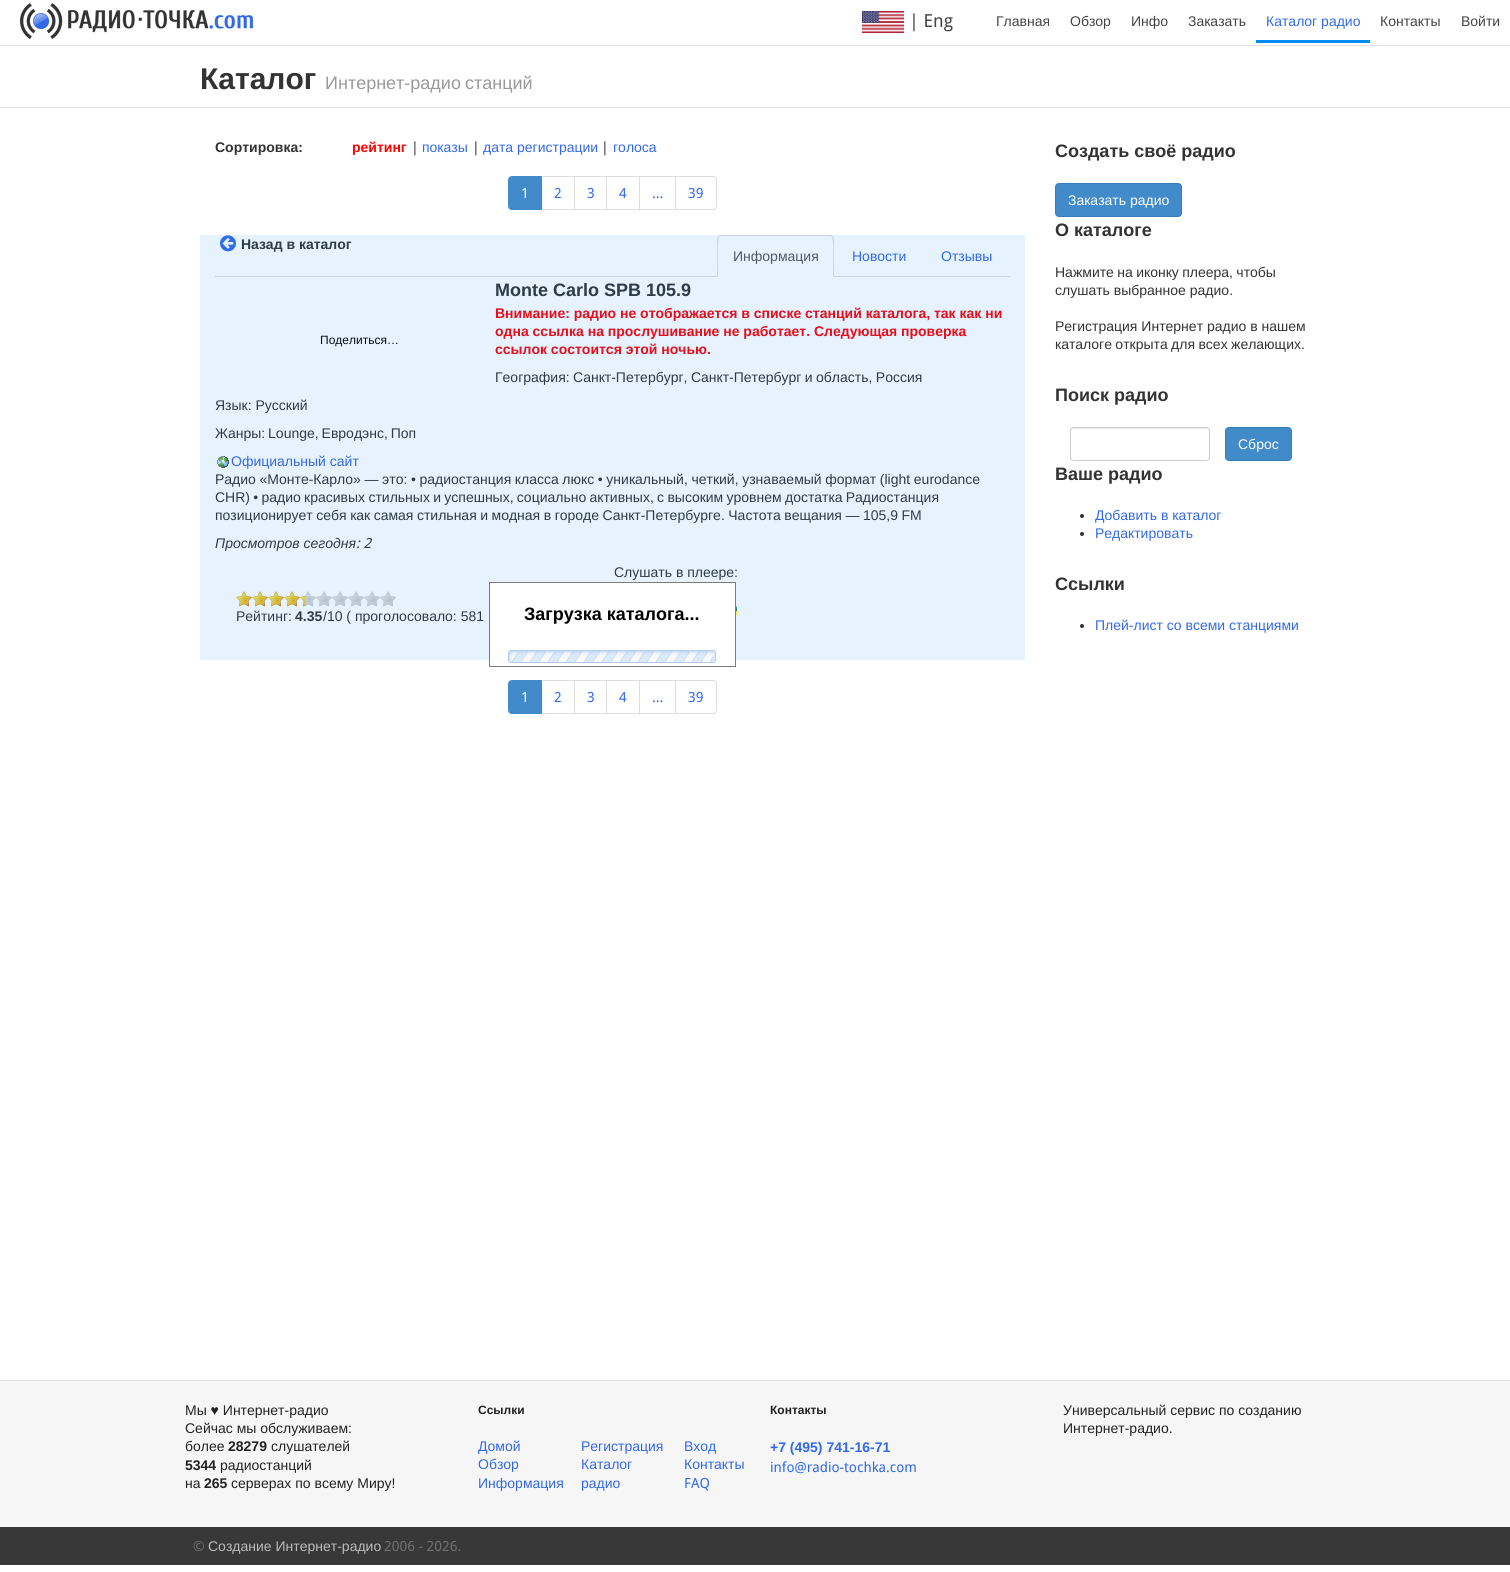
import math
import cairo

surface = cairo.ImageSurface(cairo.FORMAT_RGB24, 1510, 1572)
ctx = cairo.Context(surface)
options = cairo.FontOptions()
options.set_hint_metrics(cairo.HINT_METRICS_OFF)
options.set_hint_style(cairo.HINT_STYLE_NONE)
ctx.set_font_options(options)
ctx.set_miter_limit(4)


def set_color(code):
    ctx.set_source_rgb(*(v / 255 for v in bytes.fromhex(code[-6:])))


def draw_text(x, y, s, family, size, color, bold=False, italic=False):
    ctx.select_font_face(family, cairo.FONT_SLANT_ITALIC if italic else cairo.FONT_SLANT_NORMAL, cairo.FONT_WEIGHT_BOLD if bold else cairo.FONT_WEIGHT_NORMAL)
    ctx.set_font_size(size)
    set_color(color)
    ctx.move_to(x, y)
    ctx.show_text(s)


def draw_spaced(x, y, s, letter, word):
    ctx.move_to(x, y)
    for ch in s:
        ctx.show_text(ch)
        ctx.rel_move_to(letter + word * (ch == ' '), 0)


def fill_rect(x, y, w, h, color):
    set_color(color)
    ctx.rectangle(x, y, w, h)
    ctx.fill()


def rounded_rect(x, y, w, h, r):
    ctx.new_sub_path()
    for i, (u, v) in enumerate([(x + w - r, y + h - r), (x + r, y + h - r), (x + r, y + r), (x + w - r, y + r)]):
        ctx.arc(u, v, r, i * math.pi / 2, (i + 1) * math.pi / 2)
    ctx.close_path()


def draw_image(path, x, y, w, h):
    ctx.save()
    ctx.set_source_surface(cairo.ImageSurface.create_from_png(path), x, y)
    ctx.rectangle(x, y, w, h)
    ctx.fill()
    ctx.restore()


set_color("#ffffff")
ctx.paint()
fill_rect(200, 235, 825, 425, "#e6f3ff")
draw_image("assets/img1.png", 20, 3, 233, 36)
draw_image("assets/img2.png", 862, 11, 42, 22)
draw_text(909, 27, "| Eng", "Droid Sans", 18, "#444444")
draw_text(996, 26, "Главная", "Liberation Sans", 14, "#444444")
draw_text(1070, 26, "Обзор", "Liberation Sans", 14, "#444444")
draw_text(1131, 26, "Инфо", "Liberation Sans", 14, "#444444")
draw_text(1188, 26, "Заказать", "Liberation Sans", 14, "#444444")
fill_rect(1256, 40, 114, 3, "#008df8")
draw_text(1266, 26, "Каталог радио", "Liberation Sans", 14, "#3369e8")
draw_text(1380, 26, "Контакты", "Liberation Sans", 14, "#444444")
draw_text(1461, 26, "Войти", "Liberation Sans", 14, "#444444")
fill_rect(0, 45, 1510, 1, "#e0e0e0")
fill_rect(0, 107, 1510, 1, "#e0e0e0")
draw_text(200, 89, "Каталог", "Liberation Sans", 30, "#333333", bold=True)
ctx.select_font_face("Liberation Sans")
ctx.set_font_size(18)
set_color("#999999")
draw_spaced(325, 89, "Интернет-радио станций", 0, -1)
draw_text(215, 152, "Сортировка:", "Liberation Sans", 14, "#333333", bold=True)
draw_text(352, 152, "рейтинг", "Liberation Sans", 14, "#ff0000", bold=True)
draw_text(411, 152, "|", "Droid Sans", 14, "#333333")
draw_text(422, 152, "показы", "Liberation Sans", 14, "#3369e8")
draw_text(472, 152, "|", "Droid Sans", 14, "#333333")
draw_text(483, 152, "дата регистрации", "Liberation Sans", 14, "#3369e8")
draw_text(601, 152, "|", "Droid Sans", 14, "#333333")
draw_text(613, 152, "голоса", "Liberation Sans", 14, "#3369e8")
ctx.rectangle(541.5, 176.5, 33, 33)
set_color("#dddddd")
ctx.set_line_width(1)
ctx.stroke()
set_color("#428bca")
ctx.new_path()
ctx.move_to(512, 176.5)
ctx.line_to(541.5, 176.5)
ctx.line_to(541.5, 209.5)
ctx.line_to(512, 209.5)
ctx.curve_to(510, 209.5, 508.5, 208, 508.5, 206)
ctx.line_to(508.5, 180)
ctx.curve_to(508.5, 178, 510, 176.5, 512, 176.5)
ctx.close_path()
ctx.fill_preserve()
ctx.stroke()
draw_text(521, 198, "1", "Droid Sans", 14, "#ffffff")
draw_text(554, 198, "2", "Droid Sans", 14, "#3369e8")
ctx.rectangle(574.5, 176.5, 32, 33)
set_color("#dddddd")
ctx.stroke()
draw_text(587, 198, "3", "Droid Sans", 14, "#3369e8")
ctx.rectangle(606.5, 176.5, 33, 33)
set_color("#dddddd")
ctx.stroke()
draw_text(619, 198, "4", "Droid Sans", 14, "#3369e8")
ctx.rectangle(639.5, 176.5, 36, 33)
set_color("#dddddd")
ctx.stroke()
draw_text(652, 198, "...", "Droid Sans", 14, "#3369e8")
set_color("#ffffff")
ctx.new_path()
ctx.move_to(675.5, 176.5)
ctx.line_to(713, 176.5)
ctx.curve_to(715, 176.5, 716.5, 178, 716.5, 180)
ctx.line_to(716.5, 206)
ctx.curve_to(716.5, 208, 715, 209.5, 713, 209.5)
ctx.line_to(675.5, 209.5)
ctx.close_path()
ctx.fill_preserve()
set_color("#dddddd")
ctx.stroke()
draw_text(688, 198, "39", "Droid Sans", 14, "#3369e8")
fill_rect(215, 276, 795, 1, "#c7d5e0")
draw_image("assets/img3.png", 220, 235, 16, 17)
draw_text(241, 249, "Назад в каталог", "Liberation Sans", 14, "#2e3c47", bold=True)
set_color("#e6f3ff")
ctx.new_path()
ctx.move_to(721, 235)
ctx.line_to(830, 235)
ctx.curve_to(832, 235, 834, 237, 834, 239)
ctx.line_to(834, 277)
ctx.line_to(717, 277)
ctx.line_to(717, 239)
ctx.curve_to(717, 237, 719, 235, 721, 235)
ctx.close_path()
ctx.fill()
set_color("#c7d5e0")
ctx.new_path()
ctx.move_to(721, 235)
ctx.line_to(718, 236)
ctx.line_to(719, 237)
ctx.line_to(721, 236)
ctx.line_to(830, 236)
ctx.line_to(832, 237)
ctx.line_to(833, 236)
ctx.line_to(830, 235)
ctx.close_path()
ctx.fill()
ctx.new_path()
ctx.move_to(834, 277)
ctx.line_to(834, 239)
ctx.curve_to(834, 238, 834, 237, 833, 236)
ctx.line_to(832, 237)
ctx.curve_to(834, 239, 833, 271, 833, 276)
ctx.close_path()
ctx.fill()
ctx.new_path()
ctx.move_to(717, 277)
ctx.line_to(718, 276)
ctx.curve_to(718, 271, 717, 239, 719, 237)
ctx.line_to(718, 236)
ctx.line_to(717, 239)
ctx.close_path()
ctx.fill()
draw_text(733, 261, "Информация", "Liberation Sans", 14, "#4d5a66")
draw_text(852, 261, "Новости", "Liberation Sans", 14, "#3369e8")
draw_text(941, 261, "Отзывы", "Liberation Sans", 14, "#3369e8")
draw_text(495, 296, "Monte Carlo SPB 105.9", "Liberation Sans", 18, "#2e3c47", bold=True)
draw_text(320, 344, "Поделиться…", "Liberation Sans", 12, "#000e1a")
draw_text(495, 318, "Внимание: радио не отображается в списке станций каталога, так как ни", "Liberation Sans", 14, "#e60e1a", bold=True)
draw_text(495, 336, "одна ссылка на прослушивание не работает. Следующая проверка", "Liberation Sans", 14, "#e60e1a", bold=True)
draw_text(495, 354, "ссылок состоится этой ночью.", "Liberation Sans", 14, "#e60e1a", bold=True)
ctx.select_font_face("Liberation Sans")
set_color("#2e3c47")
draw_spaced(495, 382, "География: Санкт-Петербург, Санкт-Петербург и область, Россия", 0, -0.5)
draw_text(215, 410, "Язык: Русский", "Liberation Sans", 14, "#2e3c47")
draw_spaced(215, 438, "Жанры: Lounge, Евродэнс, Поп", 0, -1)
draw_image("assets/img4.png", 217, 456, 12, 12)
draw_text(231, 466, "Официальный сайт", "Liberation Sans", 14, "#3369e8")
set_color("#2e3c47")
draw_spaced(215, 484, "Радио «Монте-Карло» — это: • радиостанция класса люкс • уникальный, четкий, узнаваемый формат (light eurodance", 0, -0.25)
draw_spaced(215, 502, "CHR) • радио красивых стильных и успешных, социально активных, с высоким уровнем достатка Радиостанция", 0, -0.6)
draw_spaced(215, 520, "позиционирует себя как самая стильная и модная в городе Санкт-Петербурге. Частота вещания — 105,9 FM", 0, -0.4)
draw_text(215, 548, "Просмотров сегодня", "Liberation Sans", 14, "#2e3c47", italic=True)
draw_text(356, 548, ": 2", "Droid Sans", 14, "#2e3c47", italic=True)
draw_text(614, 577, "Слушать в плеере:", "Liberation Sans", 14, "#2e3c47")
draw_image("assets/img5.png", 306, 591, 90, 16)
draw_image("assets/img6.png", 236, 591, 70, 16)
draw_text(236, 621, "Рейтинг:", "Liberation Sans", 14, "#2e3c47")
draw_text(295, 621, "4.35", "Liberation Sans", 14, "#2e3c47", bold=True)
draw_text(323, 621, "/10 ( проголосовало: 581", "Liberation Sans", 14, "#2e3c47")
draw_image("assets/img7.png", 736, 605, 1, 12)
fill_rect(490, 583, 245, 77, "#ffffff")
ctx.rectangle(489.5, 582.5, 246, 84)
set_color("#7c7c7c")
ctx.stroke()
draw_text(524, 620, "Загрузка каталога...", "Liberation Sans", 18, "#000000", bold=True)
draw_image("assets/img8.png", 508, 650, 208, 13)
ctx.rectangle(541.5, 680.5, 33, 33)
set_color("#dddddd")
ctx.stroke()
set_color("#428bca")
ctx.new_path()
ctx.move_to(512, 680.5)
ctx.line_to(541.5, 680.5)
ctx.line_to(541.5, 713.5)
ctx.line_to(512, 713.5)
ctx.curve_to(510, 713.5, 508.5, 712, 508.5, 710)
ctx.line_to(508.5, 684)
ctx.curve_to(508.5, 682, 510, 680.5, 512, 680.5)
ctx.close_path()
ctx.fill_preserve()
ctx.stroke()
draw_text(521, 702, "1", "Droid Sans", 14, "#ffffff")
draw_text(554, 702, "2", "Droid Sans", 14, "#3369e8")
ctx.rectangle(574.5, 680.5, 32, 33)
set_color("#dddddd")
ctx.stroke()
draw_text(587, 702, "3", "Droid Sans", 14, "#3369e8")
ctx.rectangle(606.5, 680.5, 33, 33)
set_color("#dddddd")
ctx.stroke()
draw_text(619, 702, "4", "Droid Sans", 14, "#3369e8")
ctx.rectangle(639.5, 680.5, 36, 33)
set_color("#dddddd")
ctx.stroke()
draw_text(652, 702, "...", "Droid Sans", 14, "#3369e8")
set_color("#ffffff")
ctx.new_path()
ctx.move_to(675.5, 680.5)
ctx.line_to(713, 680.5)
ctx.curve_to(715, 680.5, 716.5, 682, 716.5, 684)
ctx.line_to(716.5, 710)
ctx.curve_to(716.5, 712, 715, 713.5, 713, 713.5)
ctx.line_to(675.5, 713.5)
ctx.close_path()
ctx.fill_preserve()
set_color("#dddddd")
ctx.stroke()
draw_text(688, 702, "39", "Droid Sans", 14, "#3369e8")
draw_text(1055, 157, "Создать своё радио", "Liberation Sans", 18, "#333333", bold=True)
set_color("#428bca")
rounded_rect(1055.5, 183.5, 126, 33, 3.5)
ctx.fill_preserve()
set_color("#357ebd")
ctx.stroke()
draw_text(1068, 205, "Заказать радио", "Liberation Sans", 14, "#ffffff")
draw_text(1055, 236, "О каталоге", "Liberation Sans", 18, "#333333", bold=True)
ctx.select_font_face("Liberation Sans")
ctx.set_font_size(14)
draw_spaced(1055, 277, "Нажмите на иконку плеера, чтобы", 0, -0.5)
draw_text(1055, 295, "слушать выбранное радио.", "Liberation Sans", 14, "#333333")
draw_text(1055, 331, "Регистрация Интернет радио в нашем", "Liberation Sans", 14, "#333333")
draw_spaced(1055, 349, "каталоге открыта для всех желающих.", 0, -0.5)
draw_text(1055, 401, "Поиск радио", "Liberation Sans", 18, "#333333", bold=True)
set_color("#ececec")
ctx.new_path()
ctx.move_to(1074, 429)
ctx.line_to(1206, 429)
ctx.curve_to(1208, 429, 1209, 430, 1209, 432)
ctx.curve_to(1209, 430, 1209, 428, 1207, 428)
ctx.line_to(1073, 428)
ctx.curve_to(1071, 428, 1071, 430, 1071, 432)
ctx.curve_to(1071, 430, 1072, 429, 1074, 429)
ctx.close_path()
ctx.fill()
rounded_rect(1070.5, 427.5, 139, 33, 3.5)
set_color("#cccccc")
ctx.stroke()
set_color("#428bca")
rounded_rect(1225.5, 427.5, 66, 33, 3.5)
ctx.fill_preserve()
set_color("#357ebd")
ctx.stroke()
draw_text(1238, 449, "Сброс", "Liberation Sans", 14, "#ffffff")
draw_text(1055, 480, "Ваше радио", "Liberation Sans", 18, "#333333", bold=True)
ctx.new_path()
ctx.arc(1082, 516, 2, 0, 2 * math.pi)
ctx.fill()
draw_text(1095, 520, "Добавить в каталог", "Liberation Sans", 14, "#3369e8")
set_color("#333333")
ctx.new_path()
ctx.arc(1082, 534, 2, 0, 2 * math.pi)
ctx.fill()
draw_text(1095, 538, "Редактировать", "Liberation Sans", 14, "#3369e8")
draw_text(1055, 590, "Ссылки", "Liberation Sans", 18, "#333333", bold=True)
ctx.new_path()
ctx.arc(1082, 626, 2, 0, 2 * math.pi)
ctx.fill()
draw_text(1095, 630, "Плей-лист со всеми станциями", "Liberation Sans", 14, "#3369e8")
fill_rect(0, 1381, 1510, 146, "#f6f6f6")
fill_rect(0, 1380, 1510, 1, "#e0e0e0")
draw_text(185, 1415, "Мы ♥ Интернет-радио", "Liberation Sans", 14, "#222222")
draw_text(185, 1433, "Сейчас мы обслуживаем:", "Liberation Sans", 14, "#222222")
draw_text(185, 1451, "более", "Liberation Sans", 14, "#222222")
draw_text(228, 1451, "28279", "Liberation Sans", 14, "#222222", bold=True)
draw_text(271, 1451, "слушателей", "Liberation Sans", 14, "#222222")
draw_text(185, 1470, "5344", "Liberation Sans", 14, "#222222", bold=True)
draw_text(220, 1470, "радиостанций", "Liberation Sans", 14, "#222222")
draw_text(185, 1488, "на", "Liberation Sans", 14, "#222222")
draw_text(204, 1488, "265", "Liberation Sans", 14, "#222222", bold=True)
draw_text(231, 1488, "серверах по всему Миру!", "Liberation Sans", 14, "#222222")
draw_text(478, 1414, "Ссылки", "Liberation Sans", 12, "#222222", bold=True)
draw_text(478, 1451, "Домой", "Liberation Sans", 14, "#3369e8")
draw_text(478, 1469, "Обзор", "Liberation Sans", 14, "#3369e8")
draw_text(478, 1488, "Информация", "Liberation Sans", 14, "#3369e8")
draw_text(581, 1451, "Регистрация", "Liberation Sans", 14, "#3369e8")
draw_text(581, 1469, "Каталог", "Liberation Sans", 14, "#3369e8")
draw_text(581, 1488, "радио", "Liberation Sans", 14, "#3369e8")
draw_text(684, 1451, "Вход", "Liberation Sans", 14, "#3369e8")
draw_text(684, 1469, "Контакты", "Liberation Sans", 14, "#3369e8")
draw_text(684, 1488, "FAQ", "Droid Sans", 14, "#3369e8")
draw_text(770, 1414, "Контакты", "Liberation Sans", 12, "#222222", bold=True)
draw_text(770, 1452, "+7 (495) 741-16-71", "Liberation Sans", 14, "#3369e8", bold=True)
draw_text(770, 1472, "info@radio-tochka.com", "Droid Sans", 14, "#3369e8")
draw_text(1063, 1415, "Универсальный сервис по созданию", "Liberation Sans", 14, "#222222")
draw_text(1063, 1433, "Интернет-радио.", "Liberation Sans", 14, "#222222")
fill_rect(0, 1527, 1510, 38, "#383838")
draw_text(193, 1551, "©", "Droid Sans", 14, "#707070")
draw_text(208, 1551, "Создание Интернет-радио", "Liberation Sans", 14, "#bbbbbb")
draw_text(384, 1551, "2006 - 2026.", "Droid Sans", 14, "#707070")
surface.write_to_png("output.png")
